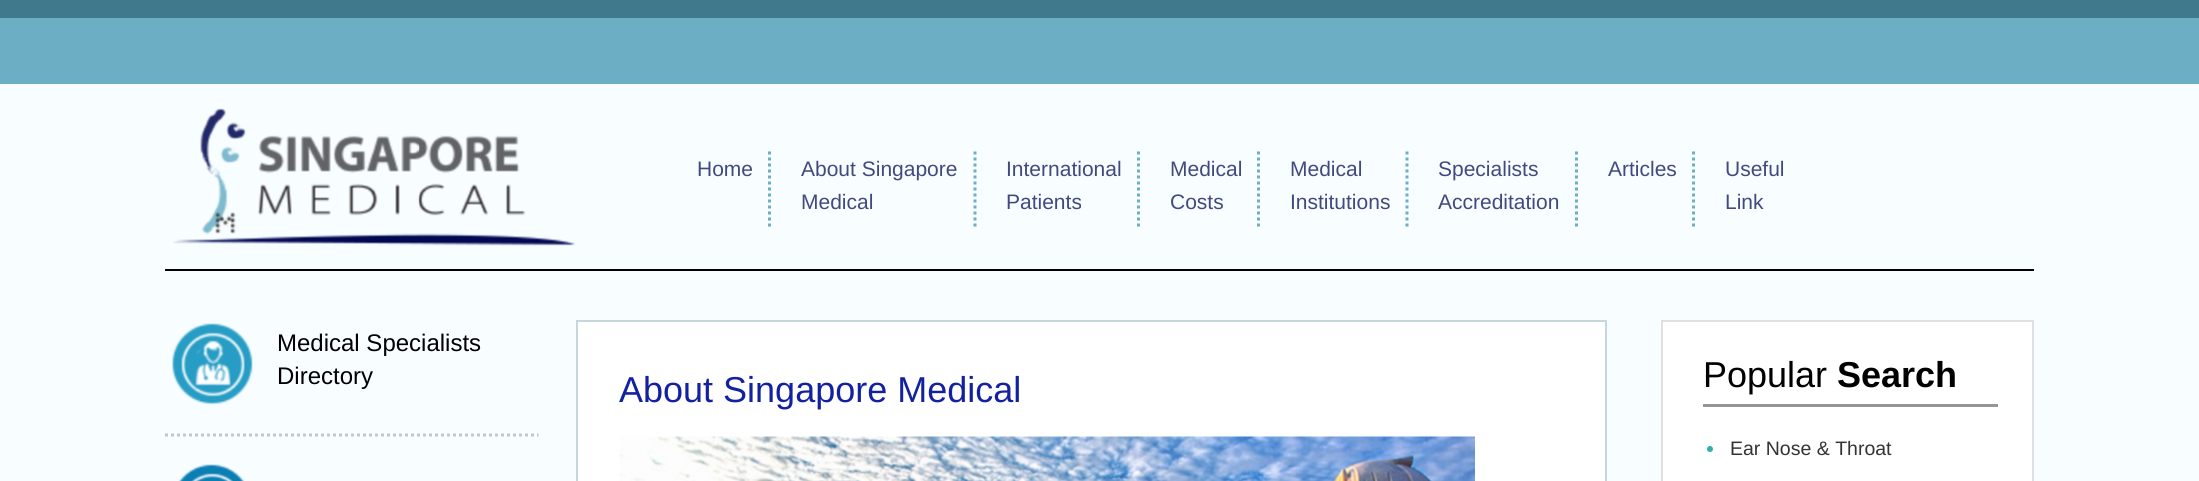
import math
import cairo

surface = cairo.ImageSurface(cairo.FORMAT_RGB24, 2199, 481)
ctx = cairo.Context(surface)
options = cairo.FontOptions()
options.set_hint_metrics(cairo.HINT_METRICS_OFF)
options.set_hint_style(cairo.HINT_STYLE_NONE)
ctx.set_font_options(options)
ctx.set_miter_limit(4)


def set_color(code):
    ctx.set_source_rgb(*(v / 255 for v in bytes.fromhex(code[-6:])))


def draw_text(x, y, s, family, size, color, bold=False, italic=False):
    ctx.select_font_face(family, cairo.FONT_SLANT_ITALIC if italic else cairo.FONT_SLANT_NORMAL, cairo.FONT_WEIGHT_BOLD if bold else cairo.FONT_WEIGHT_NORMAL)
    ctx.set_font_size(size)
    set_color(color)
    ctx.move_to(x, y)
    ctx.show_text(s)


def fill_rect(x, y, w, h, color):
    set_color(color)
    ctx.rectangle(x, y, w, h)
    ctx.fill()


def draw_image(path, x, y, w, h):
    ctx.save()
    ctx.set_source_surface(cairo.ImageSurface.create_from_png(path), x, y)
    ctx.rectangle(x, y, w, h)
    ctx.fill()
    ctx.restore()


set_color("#f8fdff")
ctx.paint()
fill_rect(0, 0, 2199, 18, "#40798c")
fill_rect(0, 18, 2199, 66, "#6caec4")
fill_rect(165, 269, 1869, 2, "#000000")
draw_image("assets/img1.png", 173, 108, 402, 138)
draw_text(697, 176, "Home", "Liberation Sans", 21, "#42497f")
ctx.new_path()
ctx.move_to(769.5, 151.5)
ctx.line_to(769.5, 226.5)
set_color("#6caec4")
ctx.set_line_width(3)
ctx.set_dash([3, 3])
ctx.stroke()
draw_text(801, 176, "About Singapore", "Liberation Sans", 21, "#42497f")
draw_text(801, 209, "Medical", "Liberation Sans", 21, "#42497f")
ctx.new_path()
ctx.move_to(975, 151.5)
ctx.line_to(975, 226.5)
set_color("#6caec4")
ctx.stroke()
draw_text(1006, 176, "International", "Liberation Sans", 21, "#42497f")
draw_text(1006, 209, "Patients", "Liberation Sans", 21, "#42497f")
ctx.new_path()
ctx.move_to(1138.5, 151.5)
ctx.line_to(1138.5, 226.5)
set_color("#6caec4")
ctx.stroke()
draw_text(1170, 176, "Medical", "Liberation Sans", 21, "#42497f")
draw_text(1170, 209, "Costs", "Liberation Sans", 21, "#42497f")
ctx.new_path()
ctx.move_to(1258.5, 151.5)
ctx.line_to(1258.5, 226.5)
set_color("#6caec4")
ctx.stroke()
draw_text(1290, 176, "Medical", "Liberation Sans", 21, "#42497f")
draw_text(1290, 209, "Institutions", "Liberation Sans", 21, "#42497f")
ctx.new_path()
ctx.move_to(1407, 151.5)
ctx.line_to(1407, 226.5)
set_color("#6caec4")
ctx.stroke()
draw_text(1438, 176, "Specialists", "Liberation Sans", 21, "#42497f")
draw_text(1438, 209, "Accreditation", "Liberation Sans", 21, "#42497f")
ctx.new_path()
ctx.move_to(1576.5, 151.5)
ctx.line_to(1576.5, 226.5)
set_color("#6caec4")
ctx.stroke()
draw_text(1608, 176, "Articles", "Liberation Sans", 21, "#42497f")
ctx.new_path()
ctx.move_to(1693.5, 151.5)
ctx.line_to(1693.5, 226.5)
set_color("#6caec4")
ctx.stroke()
draw_text(1725, 176, "Useful", "Liberation Sans", 21, "#42497f")
draw_text(1725, 209, "Link", "Liberation Sans", 21, "#42497f")
ctx.new_path()
ctx.move_to(165, 435)
ctx.line_to(538.5, 435)
set_color("#c6c6c6")
ctx.stroke()
draw_image("assets/img2.png", 172, 323, 81, 82)
draw_text(277, 351, "Medical Specialists", "Liberation Sans", 24, "#000000")
draw_text(277, 384, "Directory", "Liberation Sans", 24, "#000000")
draw_image("assets/img3.png", 178, 464, 67, 17)
set_color("#ffffff")
ctx.rectangle(577, 321, 1029, 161)
ctx.fill_preserve()
set_color("#c7d6db")
ctx.set_line_width(2)
ctx.set_dash([])
ctx.stroke()
draw_text(619, 402, "About Singapore Medical", "Liberation Sans", 36, "#1321a1")
draw_image("assets/img4.png", 619, 436, 856, 45)
set_color("#ffffff")
ctx.rectangle(1662, 321, 371, 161)
ctx.fill_preserve()
set_color("#e0e0e0")
ctx.stroke()
draw_text(1703, 387, "Popular", "Liberation Sans", 36, "#000000")
draw_text(1837, 387, "Search", "Liberation Sans", 36, "#000000", bold=True)
fill_rect(1703, 404, 295, 3, "#959595")
set_color("#31afab")
ctx.new_path()
ctx.arc(1710, 449, 3, 0, 2 * math.pi)
ctx.fill()
draw_text(1730, 455, "Ear Nose & Throat", "Liberation Sans", 19.5, "#333333")
surface.write_to_png("output.png")
